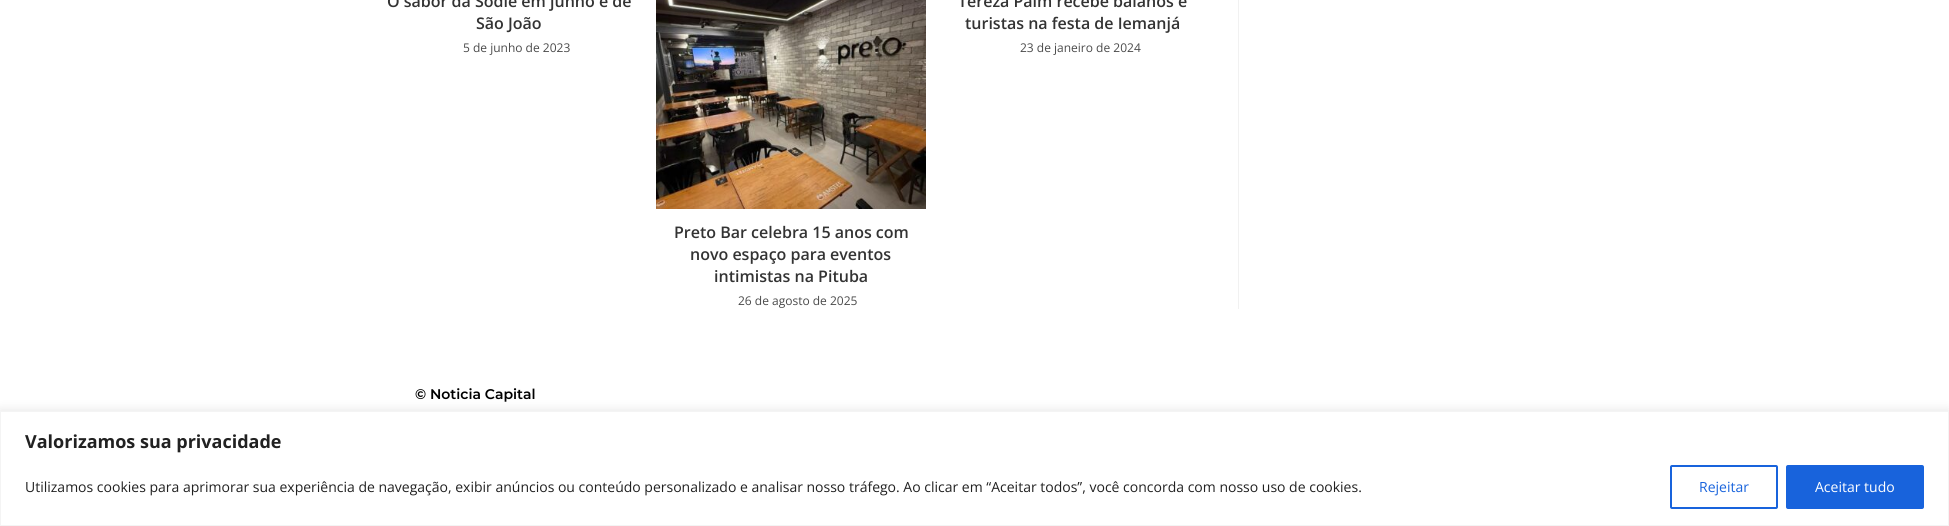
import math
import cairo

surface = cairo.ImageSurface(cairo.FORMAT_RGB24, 1949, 526)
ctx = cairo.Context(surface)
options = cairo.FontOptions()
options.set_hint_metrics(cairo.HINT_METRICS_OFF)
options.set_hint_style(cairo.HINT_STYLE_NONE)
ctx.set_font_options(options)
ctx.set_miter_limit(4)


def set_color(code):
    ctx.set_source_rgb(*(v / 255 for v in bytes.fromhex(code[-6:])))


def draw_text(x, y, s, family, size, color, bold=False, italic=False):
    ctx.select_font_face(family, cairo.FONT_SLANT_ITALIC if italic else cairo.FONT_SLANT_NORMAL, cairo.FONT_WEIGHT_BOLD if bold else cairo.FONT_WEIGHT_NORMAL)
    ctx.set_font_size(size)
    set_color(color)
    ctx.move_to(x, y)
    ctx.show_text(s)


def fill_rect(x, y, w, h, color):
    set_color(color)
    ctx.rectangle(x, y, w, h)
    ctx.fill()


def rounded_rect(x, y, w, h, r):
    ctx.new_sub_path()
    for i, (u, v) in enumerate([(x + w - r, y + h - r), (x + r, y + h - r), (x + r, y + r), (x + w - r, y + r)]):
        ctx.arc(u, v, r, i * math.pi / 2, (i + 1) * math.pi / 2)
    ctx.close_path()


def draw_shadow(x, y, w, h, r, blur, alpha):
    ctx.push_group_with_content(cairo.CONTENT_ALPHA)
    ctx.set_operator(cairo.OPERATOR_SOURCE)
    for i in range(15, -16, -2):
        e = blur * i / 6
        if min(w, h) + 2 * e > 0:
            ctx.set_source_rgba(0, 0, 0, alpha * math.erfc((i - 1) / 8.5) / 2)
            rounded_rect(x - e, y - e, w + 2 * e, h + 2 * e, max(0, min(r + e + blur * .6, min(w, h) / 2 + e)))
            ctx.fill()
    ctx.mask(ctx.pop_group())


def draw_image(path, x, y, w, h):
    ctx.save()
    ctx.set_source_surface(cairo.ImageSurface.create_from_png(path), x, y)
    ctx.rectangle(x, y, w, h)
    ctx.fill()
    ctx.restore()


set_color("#ffffff")
ctx.paint()
fill_rect(1238, 0, 1, 309, "#f1f1f1")
draw_text(387, 7, "O sabor da Sodiê em junho é de", "Open Sans SemiBold", 16, "#333333")
draw_text(476, 29, "São João", "Open Sans SemiBold", 16, "#333333")
draw_text(463, 52, "5 de junho de 2023", "Open Sans", 12, "#4a4a4a")
draw_text(958, 7, "Tereza Paim recebe baianos e", "Open Sans SemiBold", 16, "#333333")
draw_text(965, 29, "turistas na festa de Iemanjá", "Open Sans SemiBold", 16, "#333333")
draw_text(1020, 52, "23 de janeiro de 2024", "Open Sans", 12, "#4a4a4a")
draw_image("assets/img1.png", 656, 0, 270, 209)
draw_text(674, 238, "Preto Bar celebra 15 anos com", "Open Sans SemiBold", 16, "#333333")
draw_text(690, 260, "novo espaço para eventos", "Open Sans SemiBold", 16, "#333333")
draw_text(714, 282, "intimistas na Pituba", "Open Sans SemiBold", 16, "#333333")
draw_text(738, 305, "26 de agosto de 2025", "Open Sans", 12, "#4a4a4a")
draw_text(415, 399, "© Noticia Capital", "Montserrat SemiBold", 14, "#000000")
set_color("#acabab")
draw_shadow(0, 410, 1949, 115, 0, 5, 0.3)
set_color("#ffffff")
ctx.rectangle(0.5, 411.5, 1948, 114)
ctx.fill_preserve()
set_color("#f4f4f4")
ctx.set_line_width(1)
ctx.stroke()
draw_text(25, 448, "Valorizamos sua privacidade", "Open Sans", 18, "#212121", bold=True)
draw_text(25, 492, "Utilizamos cookies para aprimorar sua experiência de navegação, exibir anúncios ou conteúdo personalizado e analisar nosso tráfego. Ao clicar em “Aceitar todos”, você concorda com nosso uso de cookies.", "Open Sans", 14, "#212121")
rounded_rect(1671, 466, 106, 42, 1)
set_color("#1863dc")
ctx.set_line_width(2)
ctx.stroke()
draw_text(1699, 492, "Rejeitar", "Open Sans", 14, "#1863dc")
rounded_rect(1787, 466, 136, 42, 1)
ctx.fill_preserve()
ctx.stroke()
draw_text(1815, 492, "Aceitar tudo", "Open Sans", 14, "#ffffff")
surface.write_to_png("output.png")
